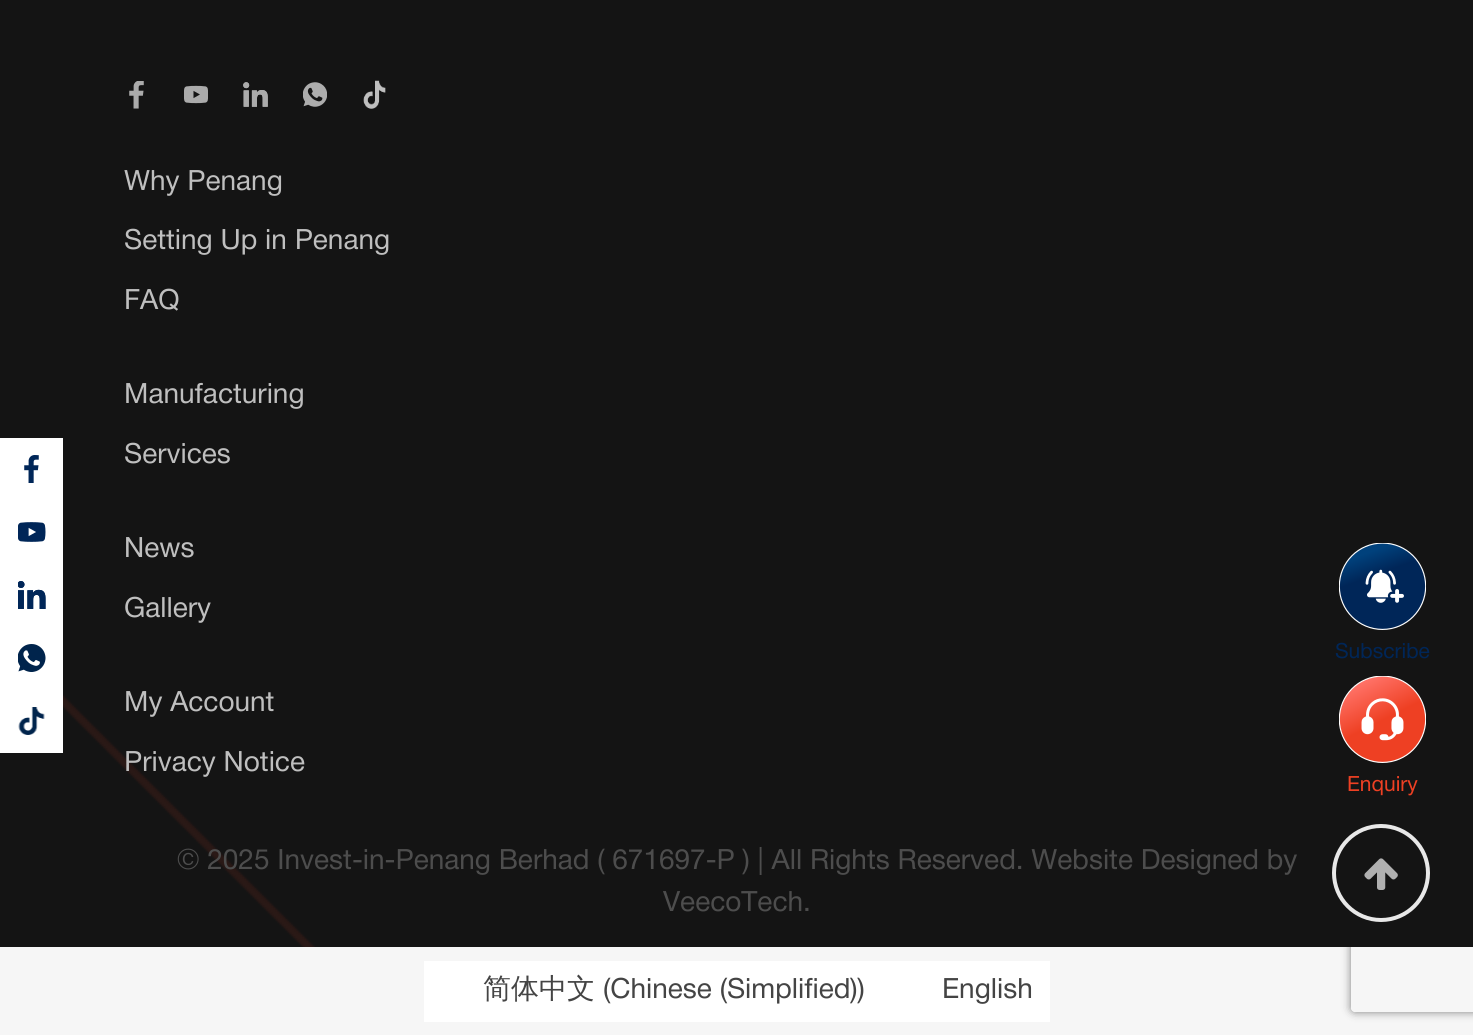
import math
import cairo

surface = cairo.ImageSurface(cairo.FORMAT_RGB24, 1473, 1035)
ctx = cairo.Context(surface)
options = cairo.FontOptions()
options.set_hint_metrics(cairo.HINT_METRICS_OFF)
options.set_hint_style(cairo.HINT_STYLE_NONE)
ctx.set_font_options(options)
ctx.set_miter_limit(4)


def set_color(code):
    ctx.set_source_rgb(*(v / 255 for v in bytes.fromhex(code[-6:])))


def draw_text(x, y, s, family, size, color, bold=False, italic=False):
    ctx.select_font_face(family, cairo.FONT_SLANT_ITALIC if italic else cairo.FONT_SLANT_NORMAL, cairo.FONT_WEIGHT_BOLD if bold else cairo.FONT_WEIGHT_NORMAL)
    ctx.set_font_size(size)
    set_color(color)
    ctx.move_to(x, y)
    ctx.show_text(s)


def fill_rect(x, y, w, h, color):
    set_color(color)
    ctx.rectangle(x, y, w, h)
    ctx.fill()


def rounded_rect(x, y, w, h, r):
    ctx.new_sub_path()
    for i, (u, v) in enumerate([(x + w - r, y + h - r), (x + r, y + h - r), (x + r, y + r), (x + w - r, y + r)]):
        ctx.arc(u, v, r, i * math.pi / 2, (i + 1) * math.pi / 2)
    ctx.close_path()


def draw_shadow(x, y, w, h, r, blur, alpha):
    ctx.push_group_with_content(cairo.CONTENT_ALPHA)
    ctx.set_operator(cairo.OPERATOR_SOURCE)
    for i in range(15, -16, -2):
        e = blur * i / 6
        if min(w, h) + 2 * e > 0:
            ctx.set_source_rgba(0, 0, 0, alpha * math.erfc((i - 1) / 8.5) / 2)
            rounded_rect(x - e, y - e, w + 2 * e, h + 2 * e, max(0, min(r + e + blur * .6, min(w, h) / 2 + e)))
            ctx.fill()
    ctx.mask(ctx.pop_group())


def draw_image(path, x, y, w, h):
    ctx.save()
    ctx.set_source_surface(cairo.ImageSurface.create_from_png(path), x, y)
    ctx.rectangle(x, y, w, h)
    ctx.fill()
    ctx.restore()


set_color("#f6f6f6")
ctx.paint()
ctx.save()
ctx.set_fill_rule(cairo.FILL_RULE_EVEN_ODD)
ctx.new_path()
ctx.move_to(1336, 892)
ctx.line_to(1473, 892)
ctx.line_to(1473, 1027)
ctx.line_to(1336, 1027)
ctx.close_path()
ctx.move_to(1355, 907)
ctx.line_to(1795, 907)
ctx.curve_to(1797, 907, 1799, 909, 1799, 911)
ctx.line_to(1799, 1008)
ctx.curve_to(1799, 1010, 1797, 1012, 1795, 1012)
ctx.line_to(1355, 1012)
ctx.curve_to(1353, 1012, 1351, 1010, 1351, 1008)
ctx.line_to(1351, 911)
ctx.curve_to(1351, 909, 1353, 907, 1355, 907)
ctx.close_path()
ctx.clip()
set_color("#808080")
draw_shadow(1351, 907, 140, 105, 4, 4.5, 1)
ctx.restore()
fill_rect(0, 0, 1473, 947, "#141414")
fill_rect(0, 438, 63, 315, "#ffffff")
draw_image("assets/img1.png", 24, 455, 15, 28)
draw_image("assets/img2.png", 18, 522, 28, 20)
draw_image("assets/img3.png", 18, 581, 28, 28)
draw_image("assets/img4.png", 18, 644, 28, 28)
draw_image("assets/img5.png", 18, 707, 27, 28)
draw_image("assets/img6.png", 129, 81, 15, 28)
draw_image("assets/img7.png", 184, 85, 24, 19)
draw_image("assets/img8.png", 243, 82, 25, 25)
draw_image("assets/img9.png", 303, 82, 24, 25)
draw_image("assets/img10.png", 363, 80, 23, 29)
draw_text(124, 190, "Why Penang", "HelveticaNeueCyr", 28, "#bfbfbf")
draw_text(124, 249, "Setting Up in Penang", "HelveticaNeueCyr", 28, "#bfbfbf")
draw_text(124, 309, "FAQ", "HelveticaNeueCyr", 28, "#bfbfbf")
draw_text(124, 403, "Manufacturing", "HelveticaNeueCyr", 28, "#bfbfbf")
draw_text(124, 463, "Services", "HelveticaNeueCyr", 28, "#bfbfbf")
draw_text(124, 557, "News", "HelveticaNeueCyr", 28, "#bfbfbf")
draw_text(124, 617, "Gallery", "HelveticaNeueCyr", 28, "#bfbfbf")
draw_image("assets/img11.png", 63, 695, 252, 252)
draw_text(124, 711, "My Account", "HelveticaNeueCyr", 28, "#bfbfbf")
draw_text(124, 771, "Privacy Notice", "HelveticaNeueCyr", 28, "#bfbfbf")
draw_text(177, 869, "© 2025 Invest-in-Penang Berhad ( 671697-P ) | All Rights Reserved. Website Designed by", "HelveticaNeueCyr", 28, "#4d4d4d")
draw_text(663, 911, "VeecoTech.", "HelveticaNeueCyr", 28, "#4d4d4d")
draw_image("assets/img12.png", 1339, 543, 87, 87)
draw_text(1335, 658, "Subscribe", "HelveticaNeueCyr", 21, "#002658")
draw_image("assets/img13.png", 1339, 676, 87, 87)
draw_text(1347, 791, "Enquiry", "HelveticaNeueCyr", 21, "#ee4023")
ctx.new_path()
ctx.arc(1381, 873, 47, 0, 2 * math.pi)
set_color("#e8e8e8")
ctx.set_line_width(4)
ctx.stroke()
draw_image("assets/img14.png", 1364, 858, 34, 32)
fill_rect(424, 961, 626, 61, "#ffffff")
draw_text(483, 998, "简体中文", "WenQuanYi Zen Hei Medium", 28, "#444444")
draw_text(603, 998, "(Chinese (Simplified))", "HelveticaNeueCyr", 28, "#444444")
draw_text(942, 998, "English", "HelveticaNeueCyr", 28, "#444444")
surface.write_to_png("output.png")
